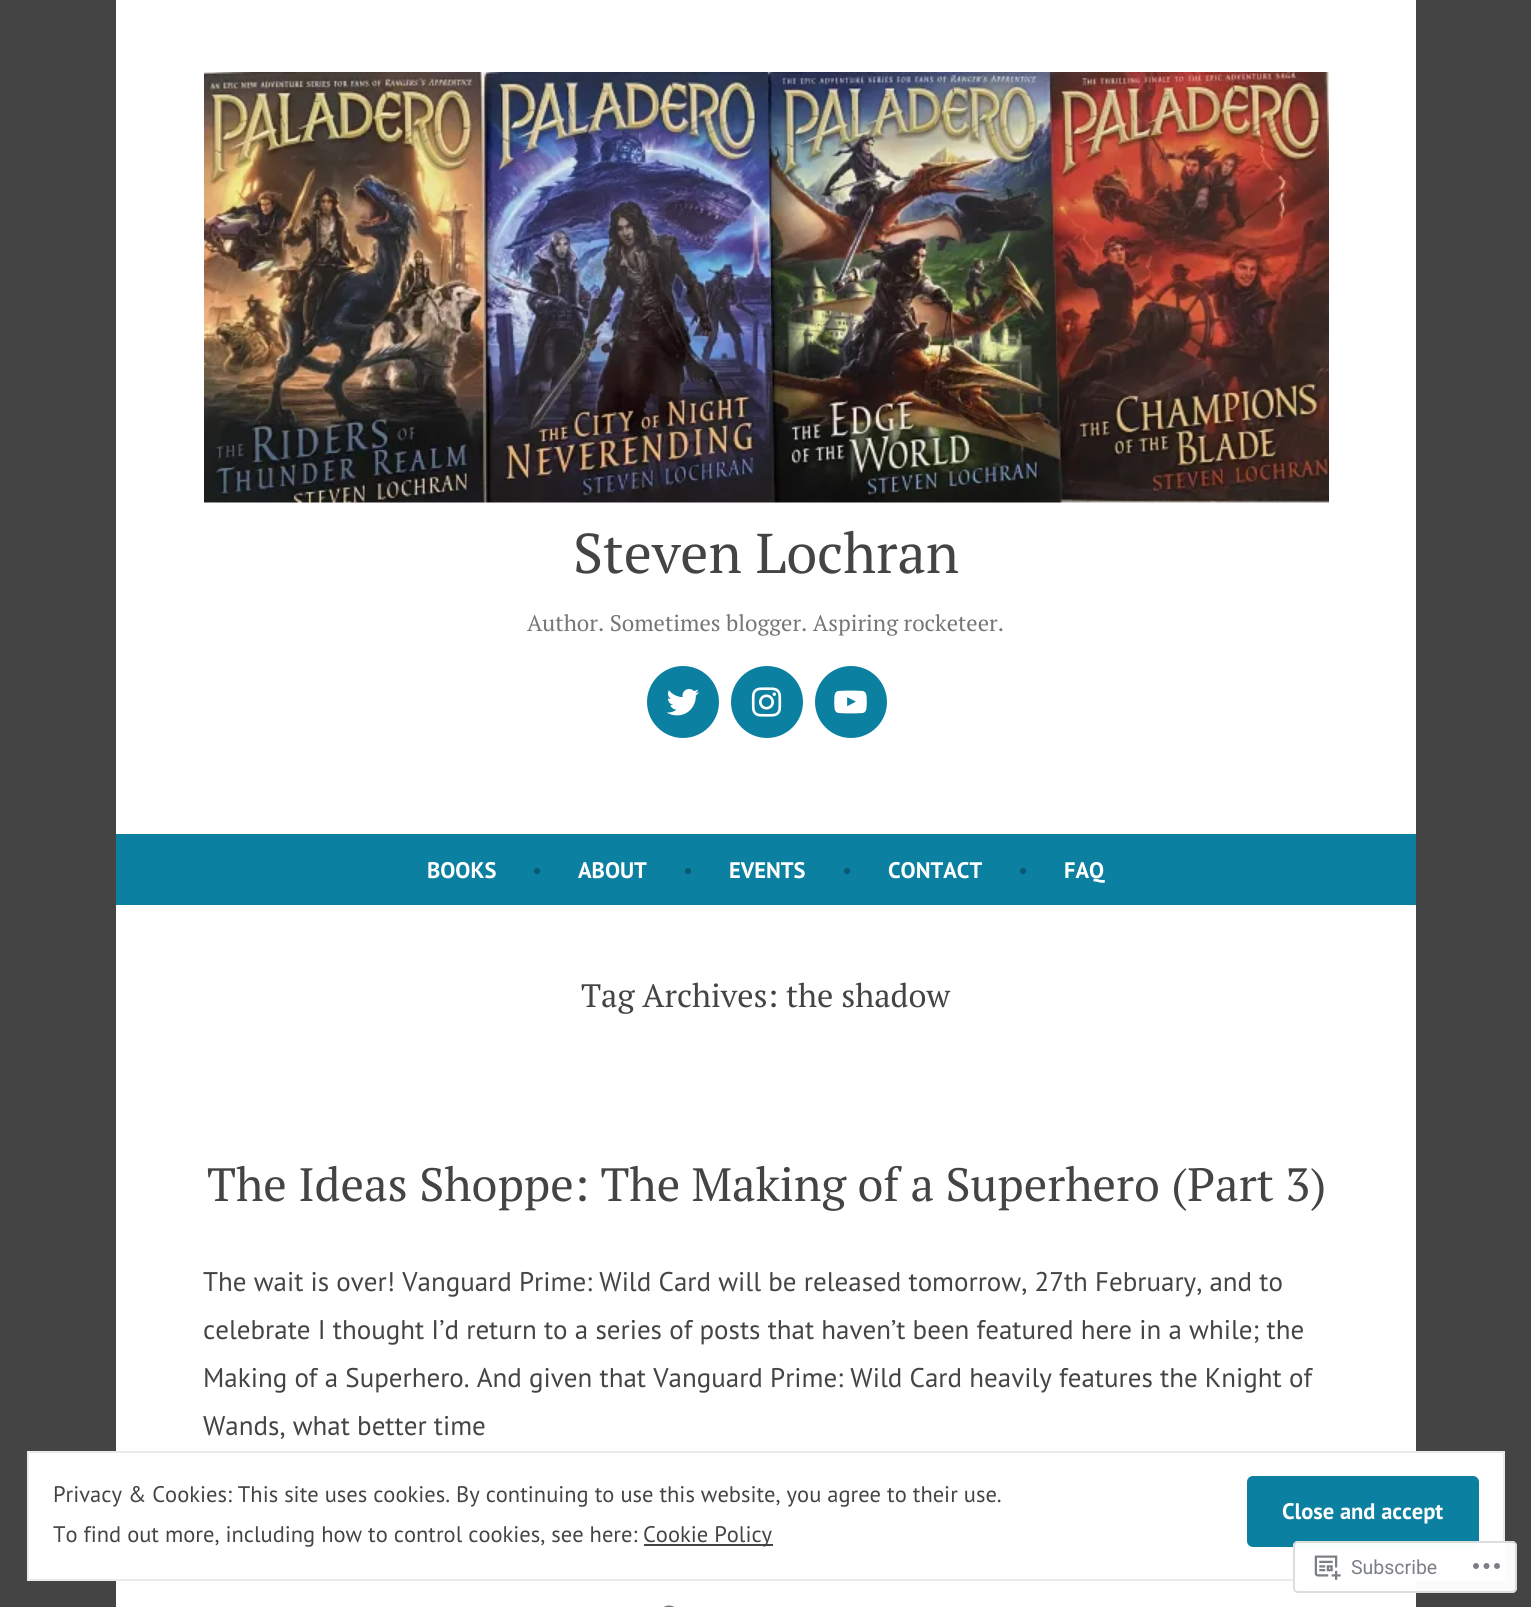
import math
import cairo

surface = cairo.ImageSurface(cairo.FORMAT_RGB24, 1531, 1607)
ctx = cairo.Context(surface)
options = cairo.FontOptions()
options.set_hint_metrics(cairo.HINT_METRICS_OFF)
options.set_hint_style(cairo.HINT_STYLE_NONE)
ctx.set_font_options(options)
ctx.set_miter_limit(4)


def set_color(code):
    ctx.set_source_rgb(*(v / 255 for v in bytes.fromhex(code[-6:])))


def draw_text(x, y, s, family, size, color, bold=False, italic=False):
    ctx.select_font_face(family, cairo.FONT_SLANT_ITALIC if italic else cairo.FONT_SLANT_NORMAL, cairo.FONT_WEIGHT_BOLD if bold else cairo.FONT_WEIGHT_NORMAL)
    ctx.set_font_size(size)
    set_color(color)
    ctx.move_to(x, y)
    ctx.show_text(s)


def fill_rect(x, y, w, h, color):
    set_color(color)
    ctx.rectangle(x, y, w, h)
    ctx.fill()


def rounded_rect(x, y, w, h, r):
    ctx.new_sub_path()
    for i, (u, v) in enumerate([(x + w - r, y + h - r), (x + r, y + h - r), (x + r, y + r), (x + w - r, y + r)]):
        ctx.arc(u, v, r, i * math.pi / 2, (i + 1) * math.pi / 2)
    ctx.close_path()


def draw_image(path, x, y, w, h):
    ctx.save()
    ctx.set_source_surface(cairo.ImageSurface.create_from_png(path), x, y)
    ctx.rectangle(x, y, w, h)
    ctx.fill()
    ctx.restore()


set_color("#444444")
ctx.paint()
fill_rect(116, 0, 1300, 1607, "#ffffff")
draw_image("assets/img1.png", 204, 72, 1125, 431)
draw_text(573, 573, "Steven Lochran", "PT Serif", 56, "#444444")
draw_text(527, 631, "Author. Sometimes blogger. Aspiring rocketeer.", "PT Serif", 22.5, "#767676")
set_color("#0c80a1")
ctx.new_path()
ctx.arc(683, 702, 36, 0, 2 * math.pi)
ctx.fill()
draw_image("assets/img2.png", 666, 689, 33, 27)
ctx.arc(767, 702, 36, 0, 2 * math.pi)
ctx.fill()
draw_image("assets/img3.png", 751, 687, 31, 30)
ctx.arc(851, 702, 36, 0, 2 * math.pi)
ctx.fill()
draw_image("assets/img4.png", 834, 690, 33, 24)
fill_rect(116, 834, 1300, 71, "#0c80a1")
draw_text(427, 878, "BOOKS", "PT Sans", 22.5, "#ffffff", bold=True)
draw_text(532, 878, "•", "PT Sans", 22.5, "#085a72")
draw_text(578, 878, "ABOUT", "PT Sans", 22.5, "#ffffff", bold=True)
draw_text(683, 878, "•", "PT Sans", 22.5, "#085a72")
draw_text(729, 878, "EVENTS", "PT Sans", 22.5, "#ffffff", bold=True)
draw_text(842, 878, "•", "PT Sans", 22.5, "#085a72")
draw_text(888, 878, "CONTACT", "PT Sans", 22.5, "#ffffff", bold=True)
draw_text(1018, 878, "•", "PT Sans", 22.5, "#085a72")
draw_text(1064, 878, "FAQ", "PT Sans", 22.5, "#ffffff", bold=True)
draw_text(581, 1007, "Tag Archives: the shadow", "PT Serif", 32.4, "#444444")
draw_text(207, 1201, "The Ideas Shoppe: The Making of a Superhero (Part 3)", "PT Serif", 46.7, "#444444")
draw_text(203, 1291, "The wait is over! Vanguard Prime: Wild Card will be released tomorrow, 27th February, and to", "PT Sans", 27, "#444444")
draw_text(203, 1339, "celebrate I thought I’d return to a series of posts that haven’t been featured here in a while; the", "PT Sans", 27, "#444444")
draw_text(203, 1387, "Making of a Superhero. And given that Vanguard Prime: Wild Card heavily features the Knight of", "PT Sans", 27, "#444444")
draw_text(203, 1435, "Wands, what better time", "PT Sans", 27, "#444444")
draw_image("assets/img5.png", 664, 1605, 10, 2)
set_color("#ffffff")
ctx.rectangle(28, 1452, 1476, 128)
ctx.fill_preserve()
set_color("#eaeaea")
ctx.stroke()
draw_text(53, 1502, "Privacy & Cookies: This site uses cookies. By continuing to use this website, you agree to their use.", "PT Sans", 22.5, "#444444")
set_color("#0c80a1")
rounded_rect(1247, 1476, 232, 71, 6)
ctx.fill()
draw_text(1282, 1519, "Close and accept", "PT Sans", 22.5, "#ffffff", bold=True)
draw_text(53, 1542, "To find out more, including how to control cookies, see here:", "PT Sans", 22.5, "#444444")
fill_rect(644, 1544, 129, 2, "#444444")
draw_text(643, 1542, "Cookie Policy", "PT Sans", 22.5, "#444444")
ctx.set_source_rgba(1, 1, 1, 0.98)
rounded_rect(1293, 1541, 224, 52, 5)
ctx.fill()
rounded_rect(1294, 1542, 222, 50, 4)
ctx.set_source_rgba(0.863, 0.863, 0.871, 0.98)
ctx.stroke()
draw_image("assets/img6.png", 1314, 1555, 27, 25)
draw_text(1351, 1574, "Subscribe", "Roboto", 19.5, "#7b7f85")
draw_image("assets/img7.png", 1473, 1563, 27, 6)
surface.write_to_png("output.png")
